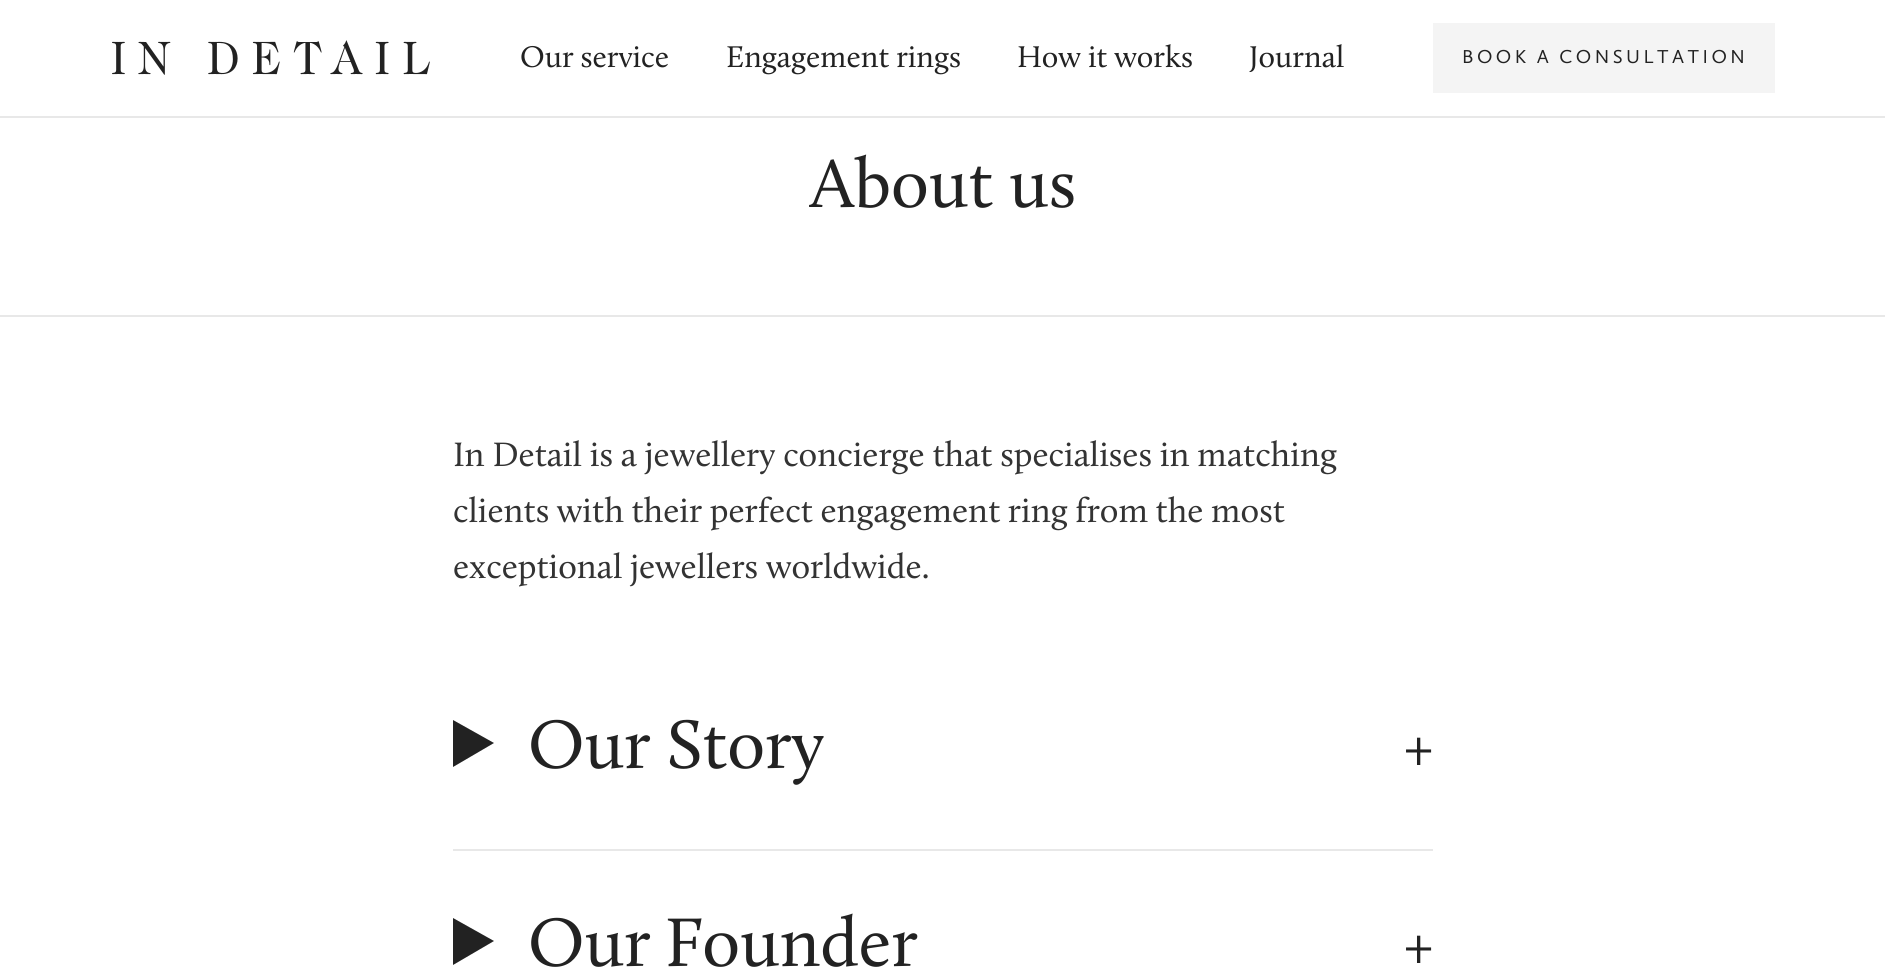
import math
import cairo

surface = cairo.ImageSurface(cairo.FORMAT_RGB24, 1885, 968)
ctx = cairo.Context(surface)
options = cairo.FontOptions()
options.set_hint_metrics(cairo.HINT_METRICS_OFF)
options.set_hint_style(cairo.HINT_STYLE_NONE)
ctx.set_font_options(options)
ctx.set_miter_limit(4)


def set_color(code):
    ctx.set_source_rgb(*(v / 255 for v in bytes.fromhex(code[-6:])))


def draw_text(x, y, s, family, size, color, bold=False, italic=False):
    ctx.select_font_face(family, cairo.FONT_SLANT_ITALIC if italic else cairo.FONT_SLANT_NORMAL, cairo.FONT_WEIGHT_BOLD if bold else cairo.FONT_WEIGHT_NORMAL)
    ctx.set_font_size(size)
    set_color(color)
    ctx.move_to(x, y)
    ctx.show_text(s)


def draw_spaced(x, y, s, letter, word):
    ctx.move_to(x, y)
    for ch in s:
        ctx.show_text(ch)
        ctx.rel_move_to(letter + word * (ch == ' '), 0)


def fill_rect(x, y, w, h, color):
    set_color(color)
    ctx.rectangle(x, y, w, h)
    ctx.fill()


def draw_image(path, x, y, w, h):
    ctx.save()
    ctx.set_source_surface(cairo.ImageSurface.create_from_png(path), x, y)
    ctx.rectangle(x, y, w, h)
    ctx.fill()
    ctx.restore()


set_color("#ffffff")
ctx.paint()
fill_rect(0, 116, 1885, 2, "#e8e8e8")
draw_image("assets/img1.png", 112, 40, 318, 35)
draw_text(520, 67, "Our service", "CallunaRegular", 31, "#222222")
draw_text(726, 67, "Engagement rings", "CallunaRegular", 31, "#222222")
draw_text(1017, 67, "How it works", "CallunaRegular", 31, "#222222")
draw_text(1249, 67, "Journal", "CallunaRegular", 31, "#222222")
fill_rect(1433, 23, 342, 70, "#f4f4f4")
ctx.select_font_face("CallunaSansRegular")
ctx.set_font_size(19.4)
set_color("#222222")
draw_spaced(1462, 63, "BOOK A CONSULTATION", 3.5, -1)
fill_rect(0, 315, 1885, 2, "#e8e8e8")
draw_text(810, 207, "About us", "CallunaRegular", 71, "#222222")
draw_text(453, 466, "In Detail is a jewellery concierge that specialises in matching", "CallunaRegular", 35, "#333333")
draw_spaced(453, 522, "clients with their perfect engagement ring from the most", 0, -0.25)
draw_text(453, 578, "exceptional jewellers worldwide.", "CallunaRegular", 35, "#333333")
fill_rect(453, 849, 980, 2, "#e8e8e8")
set_color("#222222")
ctx.new_path()
ctx.move_to(453, 720)
ctx.line_to(494, 743)
ctx.line_to(453, 767)
ctx.close_path()
ctx.fill()
draw_text(528, 768, "Our Story", "CallunaRegular", 71, "#222222")
draw_text(1404, 765, "+", "CallunaRegular", 56, "#222222")
ctx.new_path()
ctx.move_to(453, 918)
ctx.line_to(494, 941)
ctx.line_to(453, 965)
ctx.close_path()
ctx.fill()
ctx.set_font_size(71)
draw_spaced(528, 966, "Our Founder", 0, -2)
draw_text(1404, 963, "+", "CallunaRegular", 56, "#222222")
surface.write_to_png("output.png")
